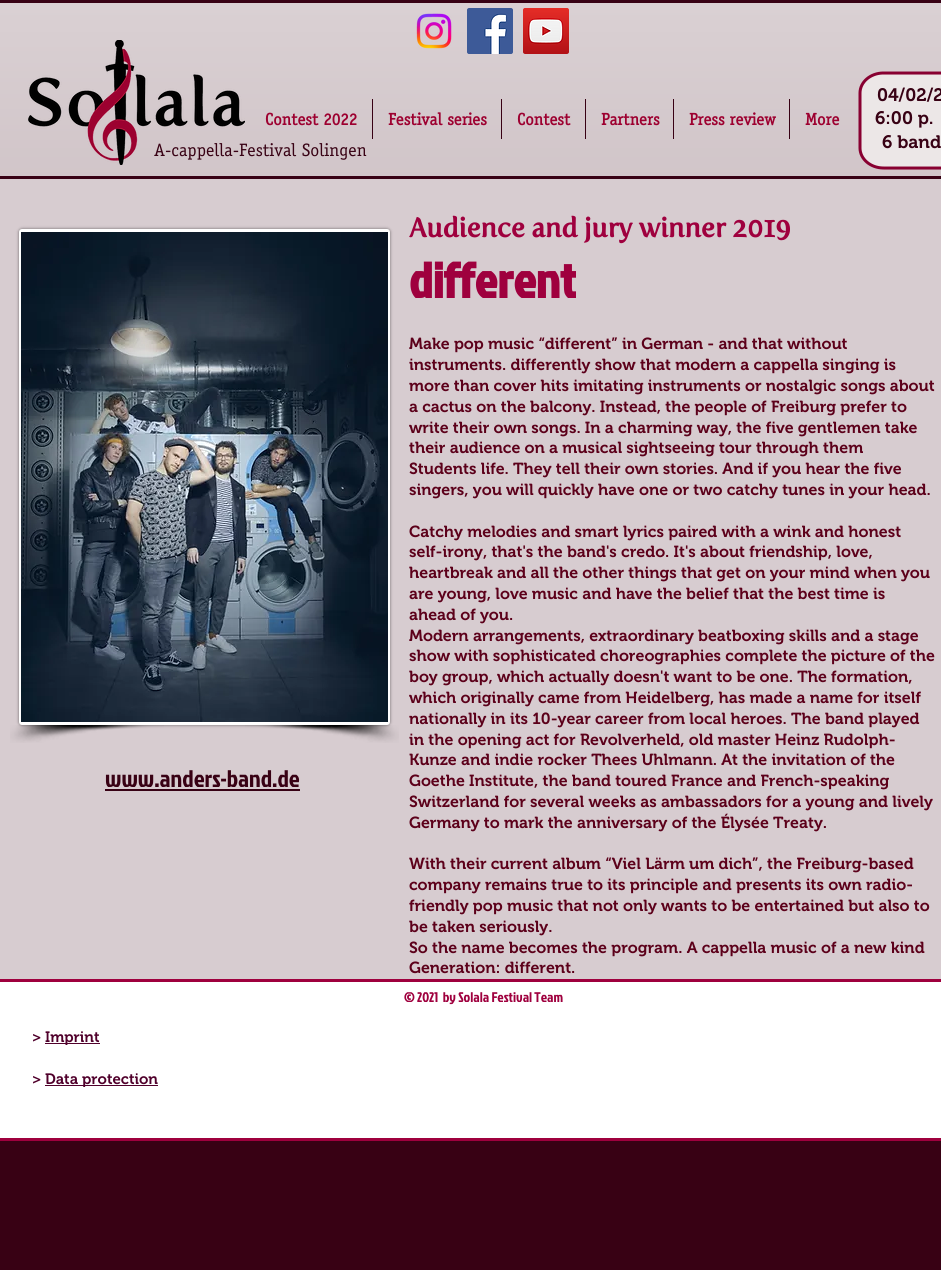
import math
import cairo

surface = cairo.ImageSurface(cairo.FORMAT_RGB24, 941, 1270)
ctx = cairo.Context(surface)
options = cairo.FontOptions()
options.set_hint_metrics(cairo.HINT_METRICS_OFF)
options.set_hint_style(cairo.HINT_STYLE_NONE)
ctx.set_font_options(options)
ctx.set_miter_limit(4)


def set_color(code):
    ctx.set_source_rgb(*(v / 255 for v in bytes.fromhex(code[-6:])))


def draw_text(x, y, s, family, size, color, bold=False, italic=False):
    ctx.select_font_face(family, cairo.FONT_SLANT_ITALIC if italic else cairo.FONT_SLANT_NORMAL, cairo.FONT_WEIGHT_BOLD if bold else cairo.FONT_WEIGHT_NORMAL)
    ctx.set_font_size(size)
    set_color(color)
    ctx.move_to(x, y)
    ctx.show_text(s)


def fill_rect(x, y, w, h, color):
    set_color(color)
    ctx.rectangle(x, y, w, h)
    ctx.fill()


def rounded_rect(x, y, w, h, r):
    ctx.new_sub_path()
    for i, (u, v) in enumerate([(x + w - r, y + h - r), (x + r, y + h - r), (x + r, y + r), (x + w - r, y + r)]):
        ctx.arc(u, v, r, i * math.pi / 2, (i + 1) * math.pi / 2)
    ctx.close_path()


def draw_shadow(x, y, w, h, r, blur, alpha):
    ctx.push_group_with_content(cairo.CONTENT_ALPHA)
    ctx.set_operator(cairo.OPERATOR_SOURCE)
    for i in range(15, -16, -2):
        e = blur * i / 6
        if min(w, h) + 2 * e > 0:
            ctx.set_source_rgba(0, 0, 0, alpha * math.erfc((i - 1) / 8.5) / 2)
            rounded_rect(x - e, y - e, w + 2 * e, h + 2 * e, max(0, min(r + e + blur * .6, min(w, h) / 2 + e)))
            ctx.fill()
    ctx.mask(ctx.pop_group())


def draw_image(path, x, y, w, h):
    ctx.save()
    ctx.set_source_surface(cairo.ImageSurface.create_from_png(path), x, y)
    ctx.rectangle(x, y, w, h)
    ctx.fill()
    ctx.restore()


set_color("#380114")
ctx.paint()
fill_rect(0, 3, 941, 173, "#cdc0c4")
draw_image("assets/img1.png", 0, 3, 941, 173)
draw_image("assets/img2.png", 416, 13, 36, 36)
draw_image("assets/img3.png", 467, 8, 46, 46)
draw_image("assets/img4.png", 523, 8, 46, 46)
draw_image("assets/img5.png", 28, 40, 217, 125)
set_color("#ece7e7")
ctx.new_path()
ctx.move_to(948, 168)
ctx.line_to(883, 168)
ctx.curve_to(871, 168, 860, 159, 860, 148)
ctx.line_to(860, 93)
ctx.curve_to(860, 82, 871, 73, 883, 73)
ctx.line_to(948, 73)
ctx.curve_to(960, 73, 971, 82, 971, 93)
ctx.line_to(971, 148)
ctx.curve_to(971, 159, 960, 168, 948, 168)
ctx.close_path()
ctx.fill()
ctx.new_path()
ctx.move_to(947.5, 168)
ctx.line_to(883.5, 168)
ctx.curve_to(870.5, 168, 860, 159, 860, 148)
ctx.line_to(860, 93)
ctx.curve_to(860, 82, 870.5, 73, 883.5, 73)
ctx.line_to(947.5, 73)
ctx.curve_to(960.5, 73, 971, 82, 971, 93)
ctx.line_to(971, 148)
ctx.curve_to(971, 159, 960.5, 168, 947.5, 168)
ctx.close_path()
set_color("#880031")
ctx.set_line_width(3)
ctx.stroke()
draw_text(265, 125, "Contest 2022", "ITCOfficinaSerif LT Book", 17, "#9d0030", bold=True)
fill_rect(372, 99, 1, 40, "#380114")
draw_text(388, 125, "Festival series", "ITCOfficinaSerif LT Book", 17, "#9d0030", bold=True)
fill_rect(501, 99, 1, 40, "#380114")
draw_text(517, 125, "Contest", "ITCOfficinaSerif LT Book", 17, "#9d0030", bold=True)
fill_rect(585, 99, 1, 40, "#380114")
draw_text(601, 125, "Partners", "ITCOfficinaSerif LT Book", 17, "#9d0030", bold=True)
fill_rect(673, 99, 1, 40, "#380114")
draw_text(689, 125, "Press review", "ITCOfficinaSerif LT Book", 17, "#9d0030", bold=True)
fill_rect(789, 99, 1, 40, "#380114")
draw_text(805, 125, "More", "ITCOfficinaSerif LT Book", 17, "#9d0030", bold=True)
draw_text(877, 101, "04/02/2", "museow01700 SemiBold", 18, "#380114")
draw_text(875, 124, "6:00 p.", "museow01700 SemiBold", 18, "#380114")
draw_text(882, 148, "6 band", "museow01700 SemiBold", 18, "#380114")
draw_text(154, 156, "A-cappella-Festival Solingen", "ITCOfficinaSerif LT Book", 18, "#380114")
fill_rect(0, 179, 941, 800, "#d7ccd0")
set_color("#000000")
draw_shadow(19, 229, 371, 496, 3, 1.5, 0.5)
set_color("#ffffff")
rounded_rect(20, 230, 369, 494, 2)
ctx.fill_preserve()
ctx.set_line_width(2)
ctx.stroke()
draw_image("assets/img6.png", 21, 232, 367, 490)
draw_image("assets/img7.png", 10, 725, 154, 18)
draw_image("assets/img8.png", 245, 725, 154, 18)
draw_text(409, 237, "Audience and jury winner 2019", "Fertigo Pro", 27, "#9f003e", bold=True)
draw_text(409, 298, "different", "Jockey One", 50, "#9f003e", bold=True)
draw_text(409, 349, "Make pop music “different” in German - and that without", "museow01700 SemiBold", 16, "#5c001a")
draw_text(409, 370, "instruments. differently show that modern a cappella singing is", "museow01700 SemiBold", 16, "#5c001a")
draw_text(409, 391, "more than cover hits imitating instruments or nostalgic songs about", "museow01700 SemiBold", 16, "#5c001a")
draw_text(409, 412, "a cactus on the balcony. Instead, the people of Freiburg prefer to", "museow01700 SemiBold", 16, "#5c001a")
draw_text(409, 433, "write their own songs. In a charming way, the five gentlemen take", "museow01700 SemiBold", 16, "#5c001a")
draw_text(409, 453, "their audience on a musical sightseeing tour through them", "museow01700 SemiBold", 16, "#5c001a")
draw_text(409, 474, "Students life. They tell their own stories. And if you hear the five", "museow01700 SemiBold", 16, "#5c001a")
draw_text(409, 495, "singers, you will quickly have one or two catchy tunes in your head.", "museow01700 SemiBold", 16, "#5c001a")
draw_text(409, 537, "Catchy melodies and smart lyrics paired with a wink and honest", "museow01700 SemiBold", 16, "#5c001a")
draw_text(409, 557, "self-irony, that's the band's credo. It's about friendship, love,", "museow01700 SemiBold", 16, "#5c001a")
draw_text(409, 578, "heartbreak and all the other things that get on your mind when you", "museow01700 SemiBold", 16, "#5c001a")
draw_text(409, 599, "are young, love music and have the belief that the best time is", "museow01700 SemiBold", 16, "#5c001a")
draw_text(409, 620, "ahead of you.", "museow01700 SemiBold", 16, "#5c001a")
draw_text(409, 641, "Modern arrangements, extraordinary beatboxing skills and a stage", "museow01700 SemiBold", 16, "#5c001a")
draw_text(409, 661, "show with sophisticated choreographies complete the picture of the", "museow01700 SemiBold", 16, "#5c001a")
draw_text(409, 682, "boy group, which actually doesn't want to be one. The formation,", "museow01700 SemiBold", 16, "#5c001a")
draw_text(409, 703, "which originally came from Heidelberg, has made a name for itself", "museow01700 SemiBold", 16, "#5c001a")
draw_text(409, 724, "nationally in its 10-year career from local heroes. The band played", "museow01700 SemiBold", 16, "#5c001a")
draw_text(409, 745, "in the opening act for Revolverheld, old master Heinz Rudolph-", "museow01700 SemiBold", 16, "#5c001a")
draw_text(409, 765, "Kunze and indie rocker Thees Uhlmann. At the invitation of the", "museow01700 SemiBold", 16, "#5c001a")
draw_text(409, 786, "Goethe Institute, the band toured France and French-speaking", "museow01700 SemiBold", 16, "#5c001a")
draw_text(409, 807, "Switzerland for several weeks as ambassadors for a young and lively", "museow01700 SemiBold", 16, "#5c001a")
draw_text(409, 828, "Germany to mark the anniversary of the Élysée Treaty.", "museow01700 SemiBold", 16, "#5c001a")
draw_text(409, 869, "With their current album “Viel Lärm um dich”, the Freiburg-based", "museow01700 SemiBold", 16, "#5c001a")
draw_text(409, 890, "company remains true to its principle and presents its own radio-", "museow01700 SemiBold", 16, "#5c001a")
draw_text(409, 911, "friendly pop music that not only wants to be entertained but also to", "museow01700 SemiBold", 16, "#5c001a")
draw_text(409, 932, "be taken seriously.", "museow01700 SemiBold", 16, "#5c001a")
draw_text(409, 953, "So the name becomes the program. A cappella music of a new kind", "museow01700 SemiBold", 16, "#5c001a")
draw_text(409, 973, "Generation: different.", "museow01700 SemiBold", 16, "#5c001a")
draw_text(105, 787, "www.anders-band.de", "Jockey One", 24, "#380114")
fill_rect(105, 789, 195, 2, "#380114")
fill_rect(0, 982, 941, 156, "#ffffff")
fill_rect(0, 979, 941, 3, "#9f003e")
fill_rect(0, 1138, 941, 3, "#9f003e")
draw_text(404, 1002, "© 2021  by Solala Festival Team", "Jockey One", 14, "#9f003e")
draw_text(32, 1042, ">", "museow01700 SemiBold", 15, "#50002b")
fill_rect(45, 1043, 55, 1, "#50002b")
draw_text(45, 1042, "Imprint", "museow01700 SemiBold", 15, "#50002b")
draw_text(32, 1084, ">", "museow01700 SemiBold", 15, "#50002b")
fill_rect(45, 1085, 113, 1, "#50002b")
draw_text(45, 1084, "Data protection", "museow01700 SemiBold", 15, "#50002b")
surface.write_to_png("output.png")
